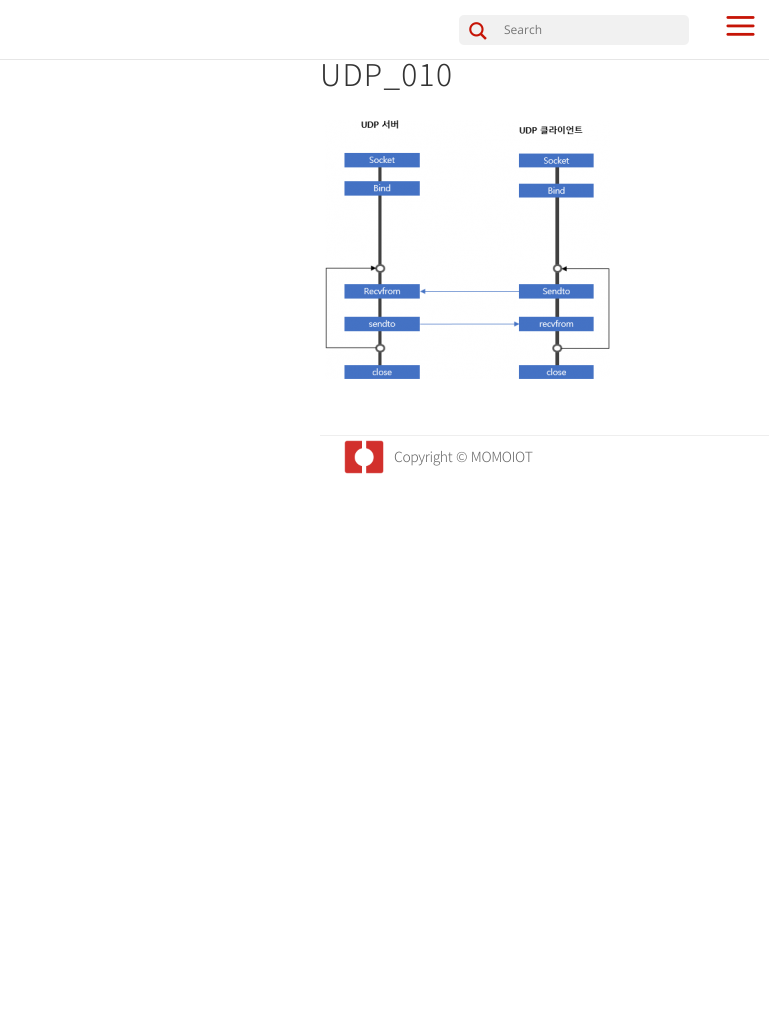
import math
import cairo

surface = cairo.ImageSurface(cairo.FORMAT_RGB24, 769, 1025)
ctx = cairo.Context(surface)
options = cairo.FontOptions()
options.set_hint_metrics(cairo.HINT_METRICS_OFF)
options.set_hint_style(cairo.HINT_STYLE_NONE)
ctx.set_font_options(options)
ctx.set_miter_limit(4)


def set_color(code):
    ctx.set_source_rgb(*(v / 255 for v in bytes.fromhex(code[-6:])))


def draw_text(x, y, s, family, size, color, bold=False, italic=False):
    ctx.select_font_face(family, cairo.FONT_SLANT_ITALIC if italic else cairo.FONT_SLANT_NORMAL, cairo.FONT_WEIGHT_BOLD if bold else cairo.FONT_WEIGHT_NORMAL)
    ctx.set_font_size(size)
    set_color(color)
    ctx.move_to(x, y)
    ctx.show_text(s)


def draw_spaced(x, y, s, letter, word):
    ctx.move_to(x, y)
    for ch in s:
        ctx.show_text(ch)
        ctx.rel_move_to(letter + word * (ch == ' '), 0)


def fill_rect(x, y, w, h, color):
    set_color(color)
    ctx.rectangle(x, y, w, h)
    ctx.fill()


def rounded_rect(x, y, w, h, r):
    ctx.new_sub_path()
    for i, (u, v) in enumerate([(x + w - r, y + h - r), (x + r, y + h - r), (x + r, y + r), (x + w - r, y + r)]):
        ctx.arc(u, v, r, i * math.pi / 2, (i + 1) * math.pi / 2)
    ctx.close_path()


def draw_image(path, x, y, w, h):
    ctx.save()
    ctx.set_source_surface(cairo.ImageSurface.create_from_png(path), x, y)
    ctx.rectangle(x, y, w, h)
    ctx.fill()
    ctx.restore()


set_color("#ffffff")
ctx.paint()
fill_rect(0, 59, 769, 1, "#e6e6e6")
set_color("#f1f1f1")
rounded_rect(459, 15, 230, 30, 5)
ctx.fill()
draw_image("assets/img1.png", 469, 22, 18, 18)
draw_text(504, 34, "Search", "Open Sans", 12, "#767676")
draw_image("assets/img2.png", 726, 16, 29, 20)
ctx.select_font_face("Noto Sans KR Light")
ctx.set_font_size(30)
set_color("#333333")
draw_spaced(320, 86, "UDP_010", 1.25, 0)
draw_image("assets/img3.png", 325, 120, 285, 259)
fill_rect(320, 435, 449, 1, "#eeeeee")
draw_image("assets/img4.png", 344, 440, 40, 34)
ctx.set_font_size(14)
set_color("#666666")
draw_spaced(394, 462, "Copyright © MOMOIOT", -0.4, 1)
surface.write_to_png("output.png")
